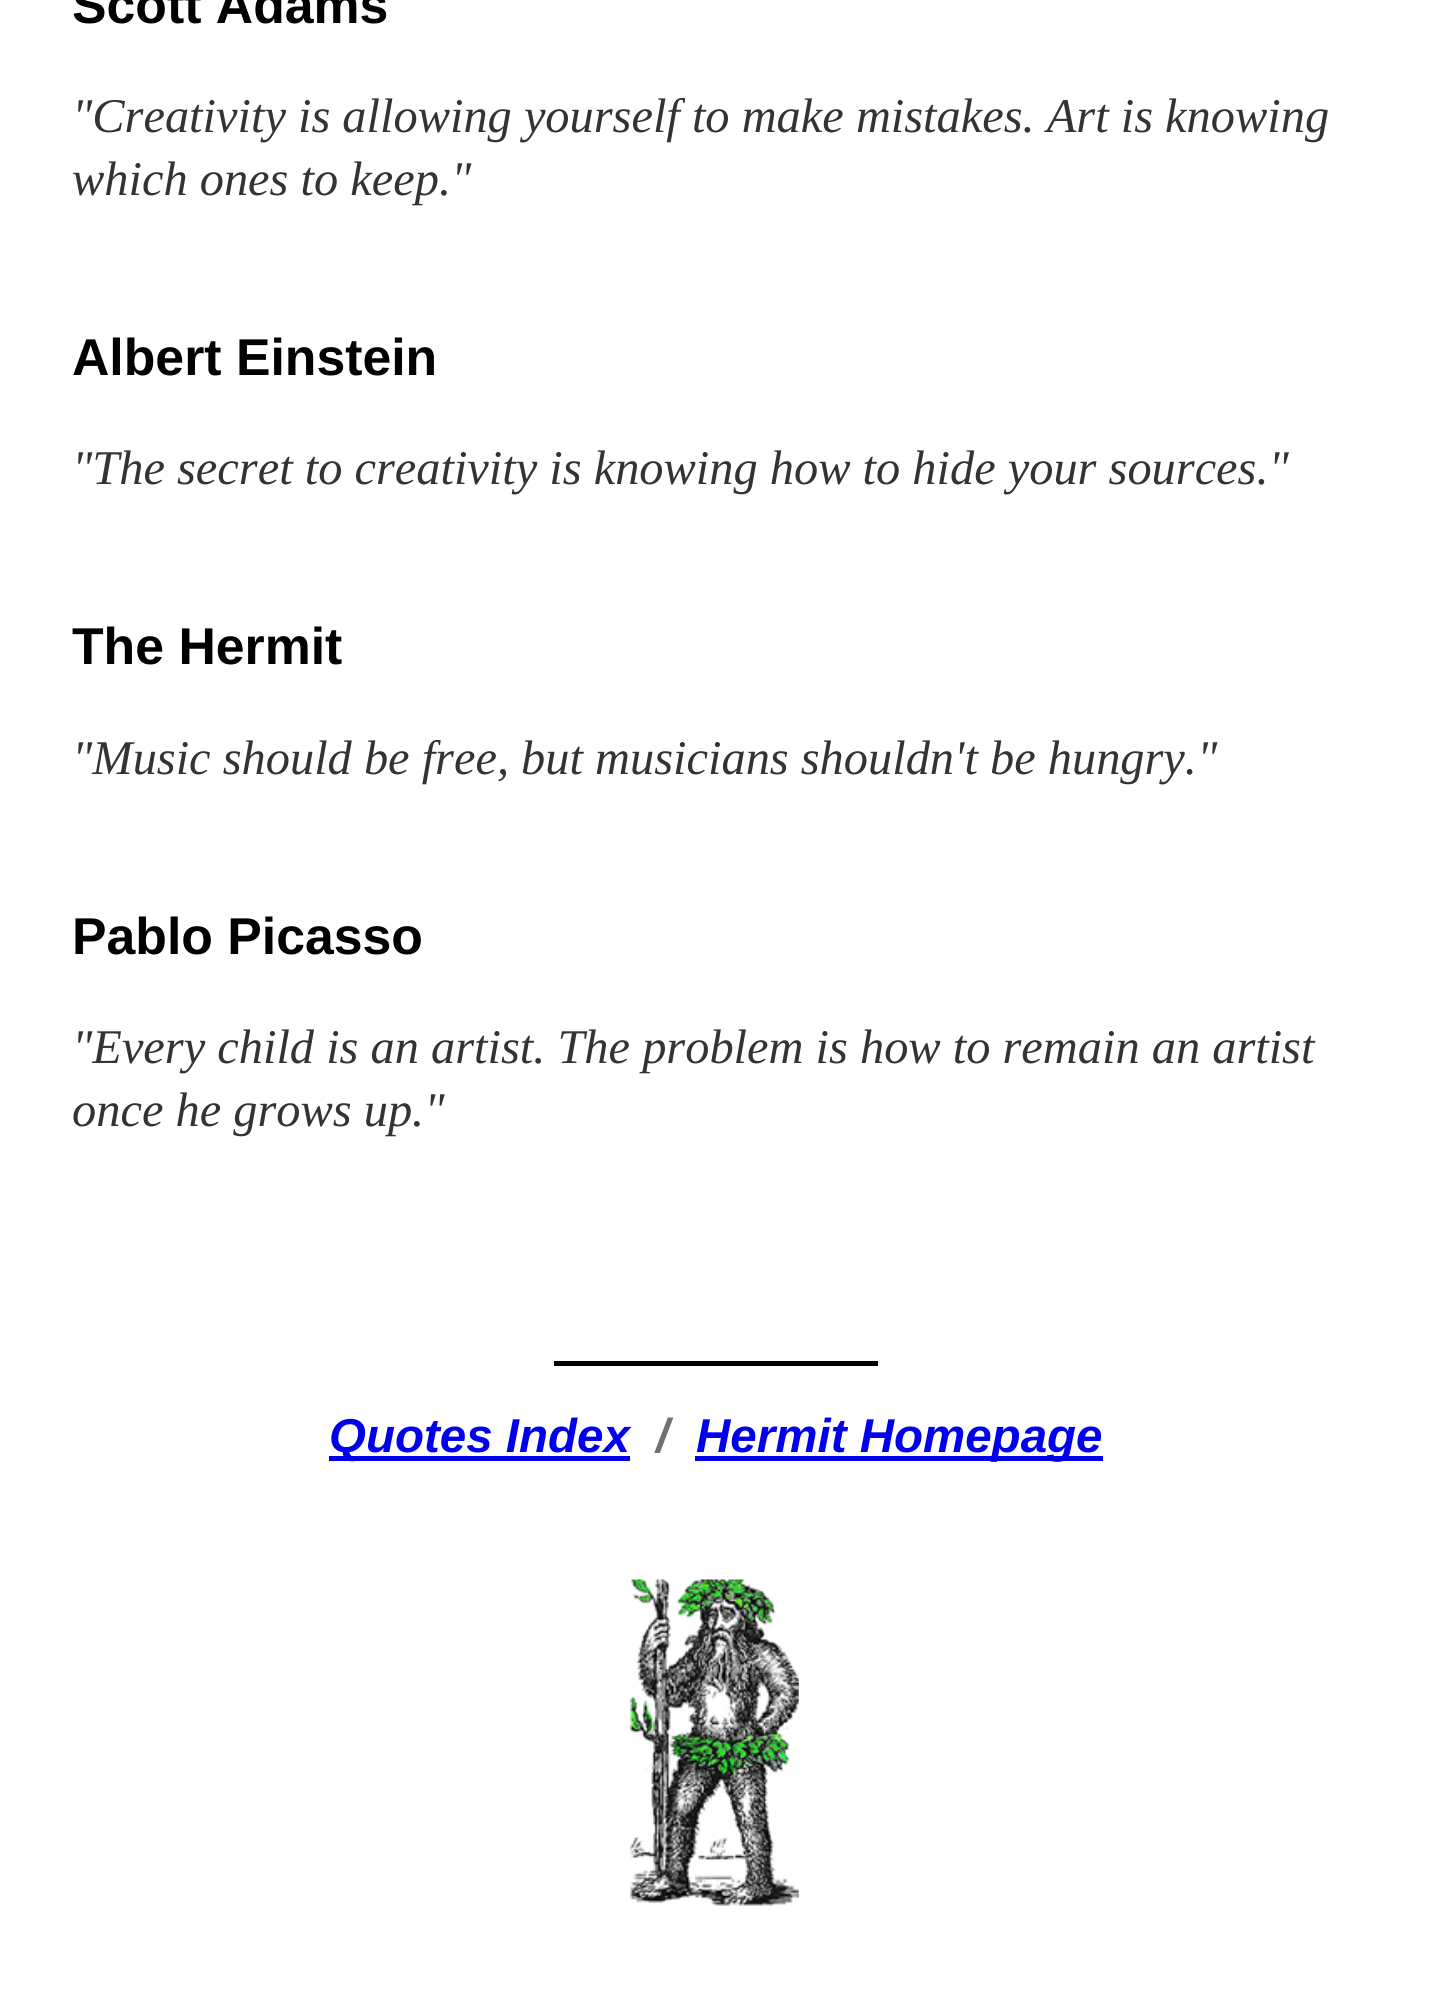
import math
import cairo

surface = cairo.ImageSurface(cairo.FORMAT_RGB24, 1431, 2010)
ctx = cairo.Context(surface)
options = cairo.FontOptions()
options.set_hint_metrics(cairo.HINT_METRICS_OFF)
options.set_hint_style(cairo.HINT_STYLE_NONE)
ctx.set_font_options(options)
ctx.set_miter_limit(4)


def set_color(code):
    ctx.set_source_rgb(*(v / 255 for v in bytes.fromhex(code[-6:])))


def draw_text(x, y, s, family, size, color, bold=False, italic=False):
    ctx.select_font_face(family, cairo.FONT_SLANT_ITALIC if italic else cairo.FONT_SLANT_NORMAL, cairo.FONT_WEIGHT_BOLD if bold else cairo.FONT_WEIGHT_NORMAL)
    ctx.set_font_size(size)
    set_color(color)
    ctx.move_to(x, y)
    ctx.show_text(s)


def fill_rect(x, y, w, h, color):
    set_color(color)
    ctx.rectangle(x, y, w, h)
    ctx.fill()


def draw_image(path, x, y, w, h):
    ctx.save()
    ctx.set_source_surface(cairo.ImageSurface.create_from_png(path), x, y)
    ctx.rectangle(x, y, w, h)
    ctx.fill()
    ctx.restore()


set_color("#ffffff")
ctx.paint()
draw_text(72, 23, "Scott Adams", "Liberation Sans", 51.75, "#000000", bold=True)
draw_text(72, 132, "\"Creativity is allowing yourself to make mistakes. Art is knowing", "Liberation Serif", 48.4, "#333333", italic=True)
draw_text(72, 195, "which ones to keep.\"", "Liberation Serif", 48.4, "#333333", italic=True)
draw_text(72, 375, "Albert Einstein", "Liberation Sans", 51.75, "#000000", bold=True)
draw_text(72, 484, "\"The secret to creativity is knowing how to hide your sources.\"", "Liberation Serif", 48.4, "#333333", italic=True)
draw_text(72, 664, "The Hermit", "Liberation Sans", 51.75, "#000000", bold=True)
draw_text(72, 774, "\"Music should be free, but musicians shouldn't be hungry.\"", "Liberation Serif", 48.4, "#333333", italic=True)
draw_text(72, 954, "Pablo Picasso", "Liberation Sans", 51.75, "#000000", bold=True)
draw_text(72, 1063, "\"Every child is an artist. The problem is how to remain an artist", "Liberation Serif", 48.4, "#333333", italic=True)
draw_text(72, 1126, "once he grows up.\"", "Liberation Serif", 48.4, "#333333", italic=True)
fill_rect(554, 1361, 324, 5, "#000000")
fill_rect(329, 1456, 301, 5, "#0000ee")
draw_text(329, 1452, "Quotes Index", "Liberation Sans", 47.5, "#0000ee", bold=True, italic=True)
draw_text(656, 1452, "/", "Liberation Sans", 47.5, "#707070", bold=True, italic=True)
fill_rect(695, 1456, 408, 5, "#0000ee")
draw_text(696, 1452, "Hermit Homepage", "Liberation Sans", 47.5, "#0000ee", bold=True, italic=True)
draw_image("assets/img1.png", 630, 1579, 169, 327)
surface.write_to_png("output.png")
